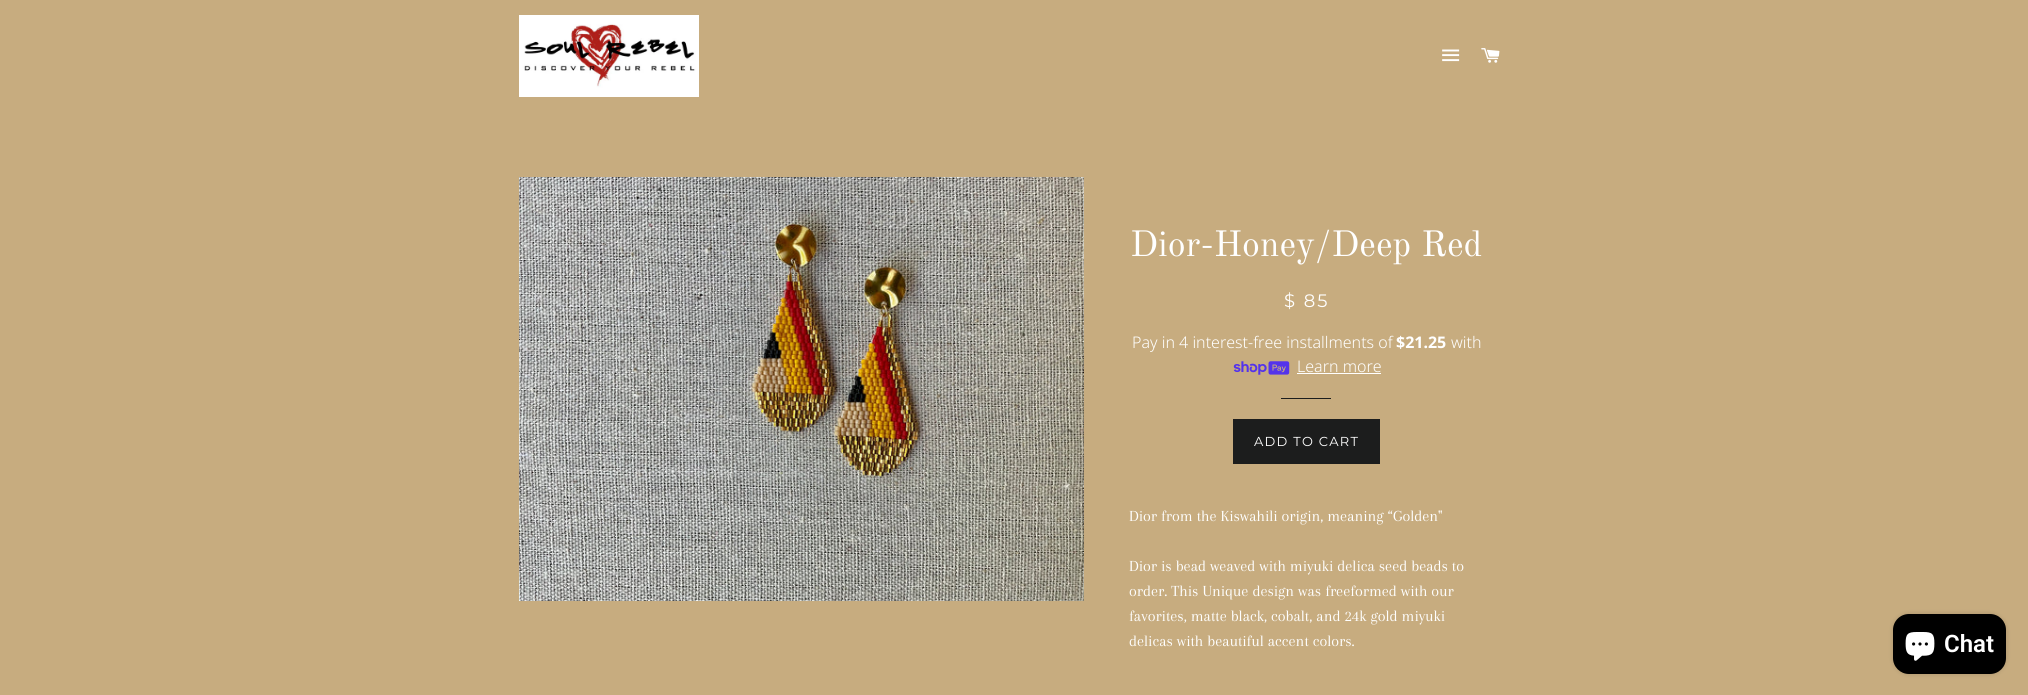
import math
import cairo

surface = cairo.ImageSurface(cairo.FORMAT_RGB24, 2028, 695)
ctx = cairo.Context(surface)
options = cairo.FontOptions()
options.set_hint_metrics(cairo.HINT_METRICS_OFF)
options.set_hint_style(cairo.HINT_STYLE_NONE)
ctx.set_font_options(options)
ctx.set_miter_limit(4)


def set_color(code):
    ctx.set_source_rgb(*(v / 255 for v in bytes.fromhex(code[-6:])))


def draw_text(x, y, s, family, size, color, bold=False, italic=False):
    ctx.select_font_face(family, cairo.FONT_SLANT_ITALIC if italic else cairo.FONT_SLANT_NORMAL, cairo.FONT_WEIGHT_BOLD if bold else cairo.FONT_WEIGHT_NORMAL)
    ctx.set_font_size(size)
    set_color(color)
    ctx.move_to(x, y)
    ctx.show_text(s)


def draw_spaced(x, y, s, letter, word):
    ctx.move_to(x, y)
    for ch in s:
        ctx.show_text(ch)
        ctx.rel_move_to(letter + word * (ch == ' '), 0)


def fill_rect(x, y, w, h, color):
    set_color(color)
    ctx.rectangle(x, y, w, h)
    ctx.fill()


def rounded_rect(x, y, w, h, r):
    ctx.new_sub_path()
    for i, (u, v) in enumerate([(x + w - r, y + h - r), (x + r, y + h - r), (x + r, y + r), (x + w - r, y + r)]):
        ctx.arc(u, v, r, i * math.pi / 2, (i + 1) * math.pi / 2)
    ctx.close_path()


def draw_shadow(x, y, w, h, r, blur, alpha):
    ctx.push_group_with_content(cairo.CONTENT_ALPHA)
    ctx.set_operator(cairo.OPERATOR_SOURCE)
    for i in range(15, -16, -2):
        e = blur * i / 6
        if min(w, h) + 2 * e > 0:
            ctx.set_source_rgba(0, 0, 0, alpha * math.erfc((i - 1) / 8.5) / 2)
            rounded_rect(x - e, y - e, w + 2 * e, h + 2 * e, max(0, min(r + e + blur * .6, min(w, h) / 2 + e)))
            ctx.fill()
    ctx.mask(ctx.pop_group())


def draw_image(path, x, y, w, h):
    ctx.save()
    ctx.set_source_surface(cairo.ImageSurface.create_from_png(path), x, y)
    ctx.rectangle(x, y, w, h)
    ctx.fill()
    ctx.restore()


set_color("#c7ac7f")
ctx.paint()
draw_image("assets/img1.png", 519, 15, 180, 82)
draw_image("assets/img2.png", 1442, 49, 18, 13)
draw_image("assets/img3.png", 1481, 48, 19, 15)
draw_image("assets/img4.png", 519, 177, 565, 424)
draw_text(1130, 256, "Dior-Honey/Deep Red", "Old Standard TT", 36, "#ffffff")
ctx.select_font_face("Montserrat Thin")
ctx.set_font_size(18)
draw_spaced(1284, 307, "$ 85", 2, 0)
draw_text(1132, 348, "Pay in 4 interest-free installments of", "Noto Sans Light", 16, "#ffffff")
draw_text(1396, 348, "$21.25", "Noto Sans", 16, "#ffffff", bold=True)
draw_text(1451, 348, "with", "Noto Sans Light", 16, "#ffffff")
draw_image("assets/img5.png", 1233, 361, 57, 14)
draw_text(1297, 372, "Learn more", "Noto Sans Light", 16, "#ffffff")
fill_rect(1297, 373, 84, 1, "#ffffff")
fill_rect(1281, 398, 50, 1, "#1c1d1d")
fill_rect(1233, 419, 147, 45, "#1c1d1d")
ctx.select_font_face("Montserrat Thin")
ctx.set_font_size(13)
set_color("#ffffff")
draw_spaced(1254, 446, "ADD TO CART", 1.25, 0)
draw_text(1129, 521, "Dior from the Kiswahili origin, meaning “Golden\"", "Arapey", 16, "#ffffff")
draw_text(1129, 571, "Dior is bead weaved with miyuki delica seed beads to", "Arapey", 16, "#ffffff")
draw_text(1129, 596, "order. This Unique design was freeformed with our", "Arapey", 16, "#ffffff")
draw_text(1129, 621, "favorites, matte black, cobalt, and 24k gold miyuki", "Arapey", 16, "#ffffff")
draw_text(1129, 646, "delicas with beautiful accent colors.", "Arapey", 16, "#ffffff")
set_color("#000000")
draw_shadow(1893, 614, 113, 60, 16, 2.5, 0.15)
set_color("#000000")
rounded_rect(1893, 614, 113, 60, 16)
ctx.fill()
draw_image("assets/img6.png", 1905, 632, 30, 29)
draw_text(1944, 652, "Chat", "Roboto SemiBold", 24, "#ffffff")
surface.write_to_png("output.png")
